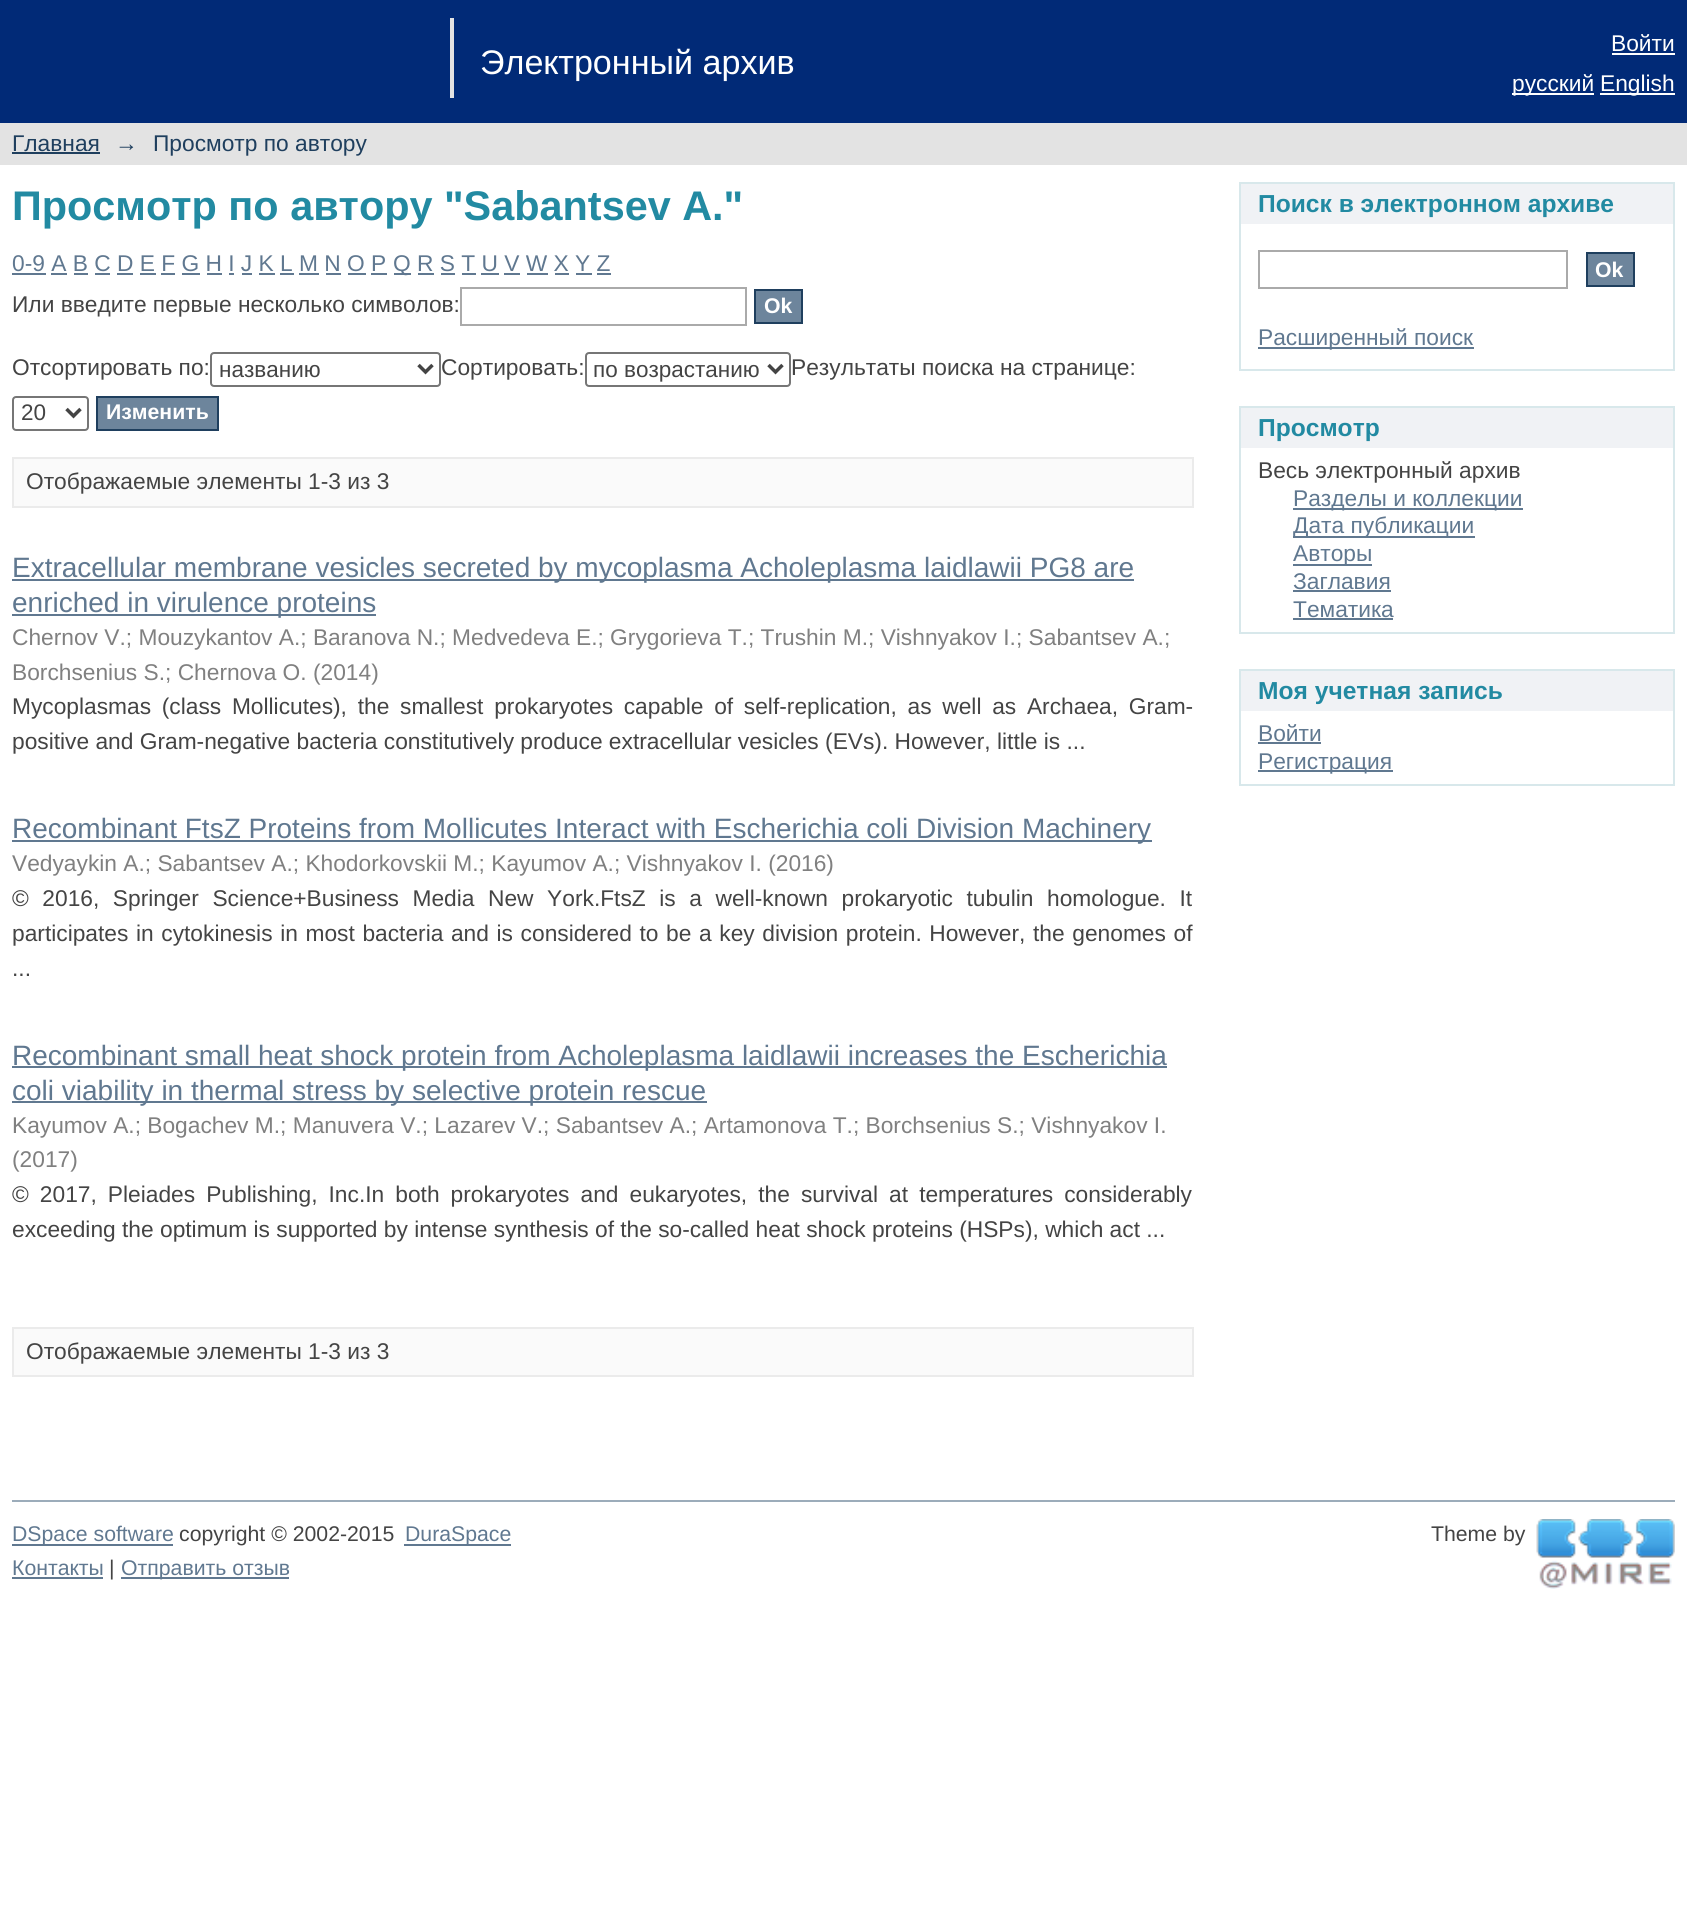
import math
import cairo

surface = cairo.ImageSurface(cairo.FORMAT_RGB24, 1687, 1911)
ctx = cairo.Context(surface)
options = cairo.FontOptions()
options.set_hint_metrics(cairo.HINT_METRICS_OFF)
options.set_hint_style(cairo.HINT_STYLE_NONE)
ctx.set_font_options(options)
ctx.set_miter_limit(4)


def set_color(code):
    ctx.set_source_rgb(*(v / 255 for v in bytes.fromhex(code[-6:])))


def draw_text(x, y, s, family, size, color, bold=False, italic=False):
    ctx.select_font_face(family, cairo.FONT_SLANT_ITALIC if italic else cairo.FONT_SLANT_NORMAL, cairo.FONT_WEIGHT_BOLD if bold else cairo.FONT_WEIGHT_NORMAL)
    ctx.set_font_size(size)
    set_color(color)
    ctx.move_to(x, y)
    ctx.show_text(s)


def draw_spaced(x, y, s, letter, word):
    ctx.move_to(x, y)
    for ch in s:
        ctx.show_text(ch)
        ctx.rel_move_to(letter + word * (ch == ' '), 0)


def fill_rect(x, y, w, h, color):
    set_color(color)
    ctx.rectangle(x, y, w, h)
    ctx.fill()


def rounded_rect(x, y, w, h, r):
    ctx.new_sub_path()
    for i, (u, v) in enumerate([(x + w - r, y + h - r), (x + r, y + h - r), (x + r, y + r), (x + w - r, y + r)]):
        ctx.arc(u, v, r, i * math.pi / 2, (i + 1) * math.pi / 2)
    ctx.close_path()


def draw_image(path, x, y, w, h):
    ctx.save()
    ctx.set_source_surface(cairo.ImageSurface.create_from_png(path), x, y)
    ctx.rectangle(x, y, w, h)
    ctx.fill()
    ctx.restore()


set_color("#ffffff")
ctx.paint()
fill_rect(0, 0, 1687, 123, "#012a77")
draw_text(1611, 51, "Войти", "Liberation Sans", 22.75, "#ffffff")
fill_rect(1612, 53, 63, 2, "#ffffff")
fill_rect(450, 18, 4, 80, "#e3e3e3")
draw_text(480, 74, "Электронный архив", "Liberation Sans", 34.1, "#ffffff")
fill_rect(1512, 93, 82, 2, "#ffffff")
draw_text(1512, 91, "русский", "Liberation Sans", 22.75, "#ffffff")
fill_rect(1600, 93, 75, 2, "#ffffff")
draw_text(1600, 91, "English", "Liberation Sans", 22.75, "#ffffff")
fill_rect(0, 123, 1687, 42, "#e3e3e3")
draw_text(12, 151, "Главная", "Liberation Sans", 22.75, "#1f3f5e")
fill_rect(12, 152, 88, 2, "#1f3f5e")
draw_text(115, 151, "→", "Liberation Sans", 22.75, "#1f3f5e")
draw_text(153, 151, "Просмотр по автору", "Liberation Sans", 22.75, "#1f3f5e")
draw_text(12, 220, "Просмотр по автору \"Sabantsev A.\"", "Liberation Sans", 41.4, "#228aa2", bold=True)
draw_text(12, 271, "0-9 A B C D E F G H I J K L M N O P", "Liberation Sans", 22.75, "#607890")
fill_rect(12, 273, 34, 2, "#607890")
fill_rect(394, 273, 17, 2, "#607890")
draw_text(393, 271, "Q R S T U V W X Y Z", "Liberation Sans", 22.75, "#607890")
fill_rect(51, 273, 16, 2, "#607890")
fill_rect(74, 273, 14, 2, "#607890")
fill_rect(95, 273, 15, 2, "#607890")
fill_rect(117, 273, 16, 2, "#607890")
fill_rect(140, 273, 16, 2, "#607890")
fill_rect(161, 273, 14, 2, "#607890")
fill_rect(182, 273, 18, 2, "#607890")
fill_rect(207, 273, 15, 2, "#607890")
fill_rect(229, 273, 5, 2, "#607890")
fill_rect(242, 273, 10, 2, "#607890")
fill_rect(259, 273, 16, 2, "#607890")
fill_rect(280, 273, 14, 2, "#607890")
fill_rect(299, 273, 20, 2, "#607890")
fill_rect(326, 273, 15, 2, "#607890")
fill_rect(348, 273, 18, 2, "#607890")
fill_rect(371, 273, 16, 2, "#607890")
fill_rect(418, 273, 16, 2, "#607890")
fill_rect(441, 273, 14, 2, "#607890")
fill_rect(462, 273, 14, 2, "#607890")
fill_rect(481, 273, 18, 2, "#607890")
fill_rect(504, 273, 16, 2, "#607890")
fill_rect(527, 273, 21, 2, "#607890")
fill_rect(555, 273, 14, 2, "#607890")
fill_rect(576, 273, 16, 2, "#607890")
fill_rect(597, 273, 14, 2, "#607890")
draw_text(12, 312, "Или введите первые несколько символов:", "Liberation Sans", 22.75, "#444444")
ctx.rectangle(461, 288, 285, 37)
set_color("#aaaaaa")
ctx.stroke()
set_color("#6d859c")
ctx.rectangle(755, 290, 47, 33)
ctx.fill_preserve()
set_color("#1f3f5e")
ctx.stroke()
draw_text(764, 313, "Ok", "Liberation Sans", 21.25, "#ffffff", bold=True)
draw_text(12, 375, "Отсортировать по:", "Liberation Sans", 22.75, "#444444")
rounded_rect(211, 353, 229, 33, 3)
set_color("#767676")
ctx.stroke()
ctx.new_path()
ctx.move_to(418.5, 365)
ctx.line_to(425.5, 372)
ctx.line_to(432.5, 365)
set_color("#444444")
ctx.set_line_width(3.5)
ctx.stroke()
draw_text(219, 377, "названию", "Liberation Sans", 22.5, "#444444")
draw_text(441, 375, "Сортировать:", "Liberation Sans", 22.75, "#444444")
rounded_rect(586, 353, 204, 33, 3)
set_color("#767676")
ctx.set_line_width(2)
ctx.stroke()
ctx.new_path()
ctx.move_to(768.5, 365)
ctx.line_to(775.5, 372)
ctx.line_to(782.5, 365)
set_color("#444444")
ctx.set_line_width(3.5)
ctx.stroke()
draw_text(593, 377, "по возрастанию", "Liberation Sans", 22.5, "#444444")
draw_text(791, 375, "Результаты поиска на странице:", "Liberation Sans", 22.75, "#444444")
rounded_rect(13, 397, 75, 33, 3)
set_color("#767676")
ctx.set_line_width(2)
ctx.stroke()
ctx.new_path()
ctx.move_to(66.5, 409)
ctx.line_to(73.5, 416)
ctx.line_to(80.5, 409)
set_color("#444444")
ctx.set_line_width(3.5)
ctx.stroke()
draw_text(21, 420, "20", "Liberation Sans", 22.5, "#444444")
set_color("#6d859c")
ctx.rectangle(97, 397, 121, 33)
ctx.fill_preserve()
set_color("#1f3f5e")
ctx.set_line_width(2)
ctx.stroke()
draw_text(106, 419, "Изменить", "Liberation Sans", 21.25, "#ffffff", bold=True)
set_color("#fafafa")
ctx.rectangle(13, 458, 1180, 49)
ctx.fill_preserve()
set_color("#ebebeb")
ctx.stroke()
draw_text(26, 489, "Отображаемые элементы 1-3 из 3", "Liberation Sans", 22.75, "#444444")
fill_rect(12, 579, 1122, 2, "#607890")
draw_text(12, 577, "Extracellular membrane vesicles secreted by mycoplasma Acholeplasma laidlawii PG8 are", "Liberation Sans", 28, "#607890")
fill_rect(12, 614, 364, 2, "#607890")
draw_text(12, 612, "enriched in virulence proteins", "Liberation Sans", 28, "#607890")
draw_text(12, 645, "Chernov V.; Mouzykantov A.; Baranova N.; Medvedeva E.; Grygorieva T.; Trushin M.; Vishnyakov I.; Sabantsev A.;", "Liberation Sans", 22.75, "#808080")
draw_text(12, 680, "Borchsenius S.; Chernova O. (2014)", "Liberation Sans", 22.75, "#808080")
set_color("#444444")
draw_spaced(12, 714, "Mycoplasmas (class Mollicutes), the smallest prokaryotes capable of self-replication, as well as Archaea, Gram-", 0, 4.4)
draw_text(12, 749, "positive and Gram-negative bacteria constitutively produce extracellular vesicles (EVs). However, little is ...", "Liberation Sans", 22.75, "#444444")
fill_rect(12, 840, 1140, 2, "#607890")
draw_text(12, 838, "Recombinant FtsZ Proteins from Mollicutes Interact with Escherichia coli Division Machinery", "Liberation Sans", 28, "#607890")
draw_text(12, 871, "Vedyaykin A.; Sabantsev A.; Khodorkovskii M.; Kayumov A.; Vishnyakov I. (2016)", "Liberation Sans", 22.75, "#808080")
set_color("#444444")
draw_spaced(12, 906, "© 2016, Springer Science+Business Media New York.FtsZ is a well-known prokaryotic tubulin homologue. It", 0, 7.25)
draw_spaced(12, 941, "participates in cytokinesis in most bacteria and is considered to be a key division protein. However, the genomes of", 0, 1.3)
draw_text(12, 976, "...", "Liberation Sans", 22.75, "#444444")
fill_rect(12, 1066, 1155, 2, "#607890")
draw_text(12, 1065, "Recombinant small heat shock protein from Acholeplasma laidlawii increases the Escherichia", "Liberation Sans", 28, "#607890")
fill_rect(12, 1101, 695, 2, "#607890")
draw_text(12, 1100, "coli viability in thermal stress by selective protein rescue", "Liberation Sans", 28, "#607890")
draw_text(12, 1133, "Kayumov A.; Bogachev M.; Manuvera V.; Lazarev V.; Sabantsev A.; Artamonova T.; Borchsenius S.; Vishnyakov I.", "Liberation Sans", 22.75, "#808080")
draw_text(12, 1167, "(2017)", "Liberation Sans", 22.75, "#808080")
set_color("#444444")
draw_spaced(12, 1202, "© 2017, Pleiades Publishing, Inc.In both prokaryotes and eukaryotes, the survival at temperatures considerably", 0, 4.75)
draw_text(12, 1237, "exceeding the optimum is supported by intense synthesis of the so-called heat shock proteins (HSPs), which act ...", "Liberation Sans", 22.75, "#444444")
set_color("#fafafa")
ctx.rectangle(13, 1328, 1180, 48)
ctx.fill_preserve()
set_color("#ebebeb")
ctx.stroke()
draw_text(26, 1359, "Отображаемые элементы 1-3 из 3", "Liberation Sans", 22.75, "#444444")
fill_rect(1241, 184, 432, 40, "#f0f2f5")
fill_rect(1239, 182, 436, 2, "#d8e8eb")
fill_rect(1673, 182, 2, 189, "#d8e8eb")
fill_rect(1239, 182, 2, 42, "#d8e8eb")
draw_text(1258, 212, "Поиск в электронном архиве", "Liberation Sans", 24.6, "#228aa2", bold=True)
fill_rect(1239, 369, 436, 2, "#d8e8eb")
fill_rect(1239, 224, 2, 147, "#d8e8eb")
ctx.rectangle(1259, 251, 308, 37)
set_color("#aaaaaa")
ctx.stroke()
set_color("#6d859c")
ctx.rectangle(1587, 253, 47, 33)
ctx.fill_preserve()
set_color("#1f3f5e")
ctx.stroke()
draw_text(1595, 277, "Ok", "Liberation Sans", 21.25, "#ffffff", bold=True)
fill_rect(1258, 347, 216, 2, "#607890")
draw_text(1258, 345, "Расширенный поиск", "Liberation Sans", 22.75, "#607890")
fill_rect(1241, 408, 432, 40, "#f0f2f5")
fill_rect(1239, 406, 436, 2, "#d8e8eb")
fill_rect(1673, 406, 2, 228, "#d8e8eb")
fill_rect(1239, 406, 2, 42, "#d8e8eb")
draw_text(1258, 436, "Просмотр", "Liberation Sans", 24.6, "#228aa2", bold=True)
fill_rect(1239, 632, 436, 2, "#d8e8eb")
fill_rect(1239, 448, 2, 186, "#d8e8eb")
draw_text(1258, 478, "Весь электронный архив", "Liberation Sans", 22.75, "#444444")
fill_rect(1293, 508, 230, 2, "#607890")
draw_text(1293, 506, "Разделы и коллекции", "Liberation Sans", 22.75, "#607890")
fill_rect(1293, 536, 182, 2, "#607890")
draw_text(1293, 533, "Дата публикации", "Liberation Sans", 22.75, "#607890")
fill_rect(1293, 564, 79, 2, "#607890")
draw_text(1293, 561, "Авторы", "Liberation Sans", 22.75, "#607890")
draw_text(1293, 589, "Заглавия", "Liberation Sans", 22.75, "#607890")
fill_rect(1293, 590, 98, 2, "#607890")
draw_text(1293, 617, "Тематика", "Liberation Sans", 22.75, "#607890")
fill_rect(1293, 618, 100, 2, "#607890")
fill_rect(1241, 671, 432, 40, "#f0f2f5")
fill_rect(1239, 669, 436, 2, "#d8e8eb")
fill_rect(1673, 669, 2, 117, "#d8e8eb")
fill_rect(1239, 669, 2, 42, "#d8e8eb")
draw_text(1258, 699, "Моя учетная запись", "Liberation Sans", 24.6, "#228aa2", bold=True)
fill_rect(1239, 784, 436, 2, "#d8e8eb")
fill_rect(1239, 711, 2, 75, "#d8e8eb")
draw_text(1258, 741, "Войти", "Liberation Sans", 22.75, "#607890")
fill_rect(1258, 742, 63, 2, "#607890")
fill_rect(1258, 770, 135, 2, "#607890")
draw_text(1258, 769, "Регистрация", "Liberation Sans", 22.75, "#607890")
fill_rect(12, 1500, 1663, 2, "#9cacba")
fill_rect(12, 1544, 161, 2, "#607890")
draw_text(12, 1541, "DSpace software", "Liberation Sans", 21.25, "#607890")
draw_text(179, 1541, "copyright © 2002-2015", "Liberation Sans", 21.25, "#444444")
fill_rect(404, 1544, 107, 2, "#607890")
draw_text(405, 1541, "DuraSpace", "Liberation Sans", 21.25, "#607890")
draw_text(1431, 1541, "Theme by", "Liberation Sans", 21.25, "#444444")
draw_image("assets/img1.png", 1536, 1519, 139, 70)
draw_text(12, 1575, "Контакты", "Liberation Sans", 21.25, "#607890")
fill_rect(12, 1577, 91, 2, "#607890")
draw_text(109, 1575, "|", "Liberation Sans", 21.25, "#444444")
fill_rect(121, 1577, 168, 2, "#607890")
draw_text(121, 1575, "Отправить отзыв", "Liberation Sans", 21.25, "#607890")
surface.write_to_png("output.png")
